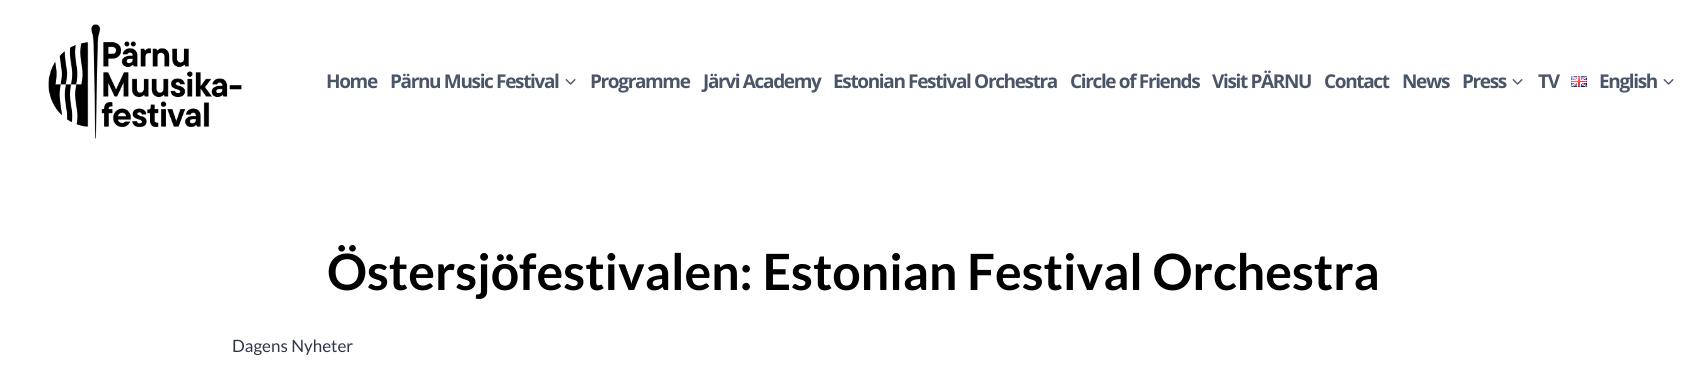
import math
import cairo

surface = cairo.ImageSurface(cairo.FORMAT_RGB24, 1706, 382)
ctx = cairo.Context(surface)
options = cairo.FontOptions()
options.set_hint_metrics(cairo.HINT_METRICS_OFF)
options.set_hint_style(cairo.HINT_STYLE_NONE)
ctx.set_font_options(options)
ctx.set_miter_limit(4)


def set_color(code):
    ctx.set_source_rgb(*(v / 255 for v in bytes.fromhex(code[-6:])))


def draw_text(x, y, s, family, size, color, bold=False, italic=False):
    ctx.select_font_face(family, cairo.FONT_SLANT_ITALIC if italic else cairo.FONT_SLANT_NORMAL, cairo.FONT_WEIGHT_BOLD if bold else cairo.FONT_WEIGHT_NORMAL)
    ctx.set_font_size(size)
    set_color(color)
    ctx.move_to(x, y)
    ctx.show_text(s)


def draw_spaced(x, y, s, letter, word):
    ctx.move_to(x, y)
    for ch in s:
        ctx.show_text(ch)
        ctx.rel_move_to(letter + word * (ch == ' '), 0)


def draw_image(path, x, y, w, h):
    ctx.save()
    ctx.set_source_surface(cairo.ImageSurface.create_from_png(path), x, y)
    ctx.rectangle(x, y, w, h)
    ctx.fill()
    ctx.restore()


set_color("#ffffff")
ctx.paint()
draw_image("assets/img1.png", 48, 24, 194, 115)
ctx.select_font_face("Open Sans", cairo.FONT_SLANT_NORMAL, cairo.FONT_WEIGHT_BOLD)
ctx.set_font_size(19)
set_color("#4a5568")
draw_spaced(326, 88, "Home", -1.35, 0)
draw_spaced(390, 88, "Pärnu Music Festival", -1.35, 0)
draw_image("assets/img2.png", 565, 79, 11, 6)
draw_spaced(590, 88, "Programme", -1.35, 0)
draw_spaced(703, 88, "Järvi Academy", -1.35, 0)
draw_spaced(833, 88, "Estonian Festival Orchestra", -1.35, 0)
draw_spaced(1070, 88, "Circle of Friends", -1.35, 0)
draw_spaced(1212, 88, "Visit PÄRNU", -1.35, 0)
draw_spaced(1324, 88, "Contact", -1.35, 0)
draw_spaced(1402, 88, "News", -1.35, 0)
draw_spaced(1462, 88, "Press", -1.35, 0)
draw_image("assets/img2.png", 1512, 79, 11, 6)
draw_spaced(1538, 88, "TV", -1.35, 0)
draw_image("assets/img3.png", 1571, 76, 16, 11)
draw_spaced(1599, 88, "English", -1.35, 0)
draw_image("assets/img2.png", 1663, 79, 11, 6)
draw_text(327, 290, "Östersjöfestivalen: Estonian Festival Orchestra", "Lato", 50, "#000000", bold=True)
draw_text(232, 352, "Dagens Nyheter", "Lato", 17, "#2d3748")
surface.write_to_png("output.png")
